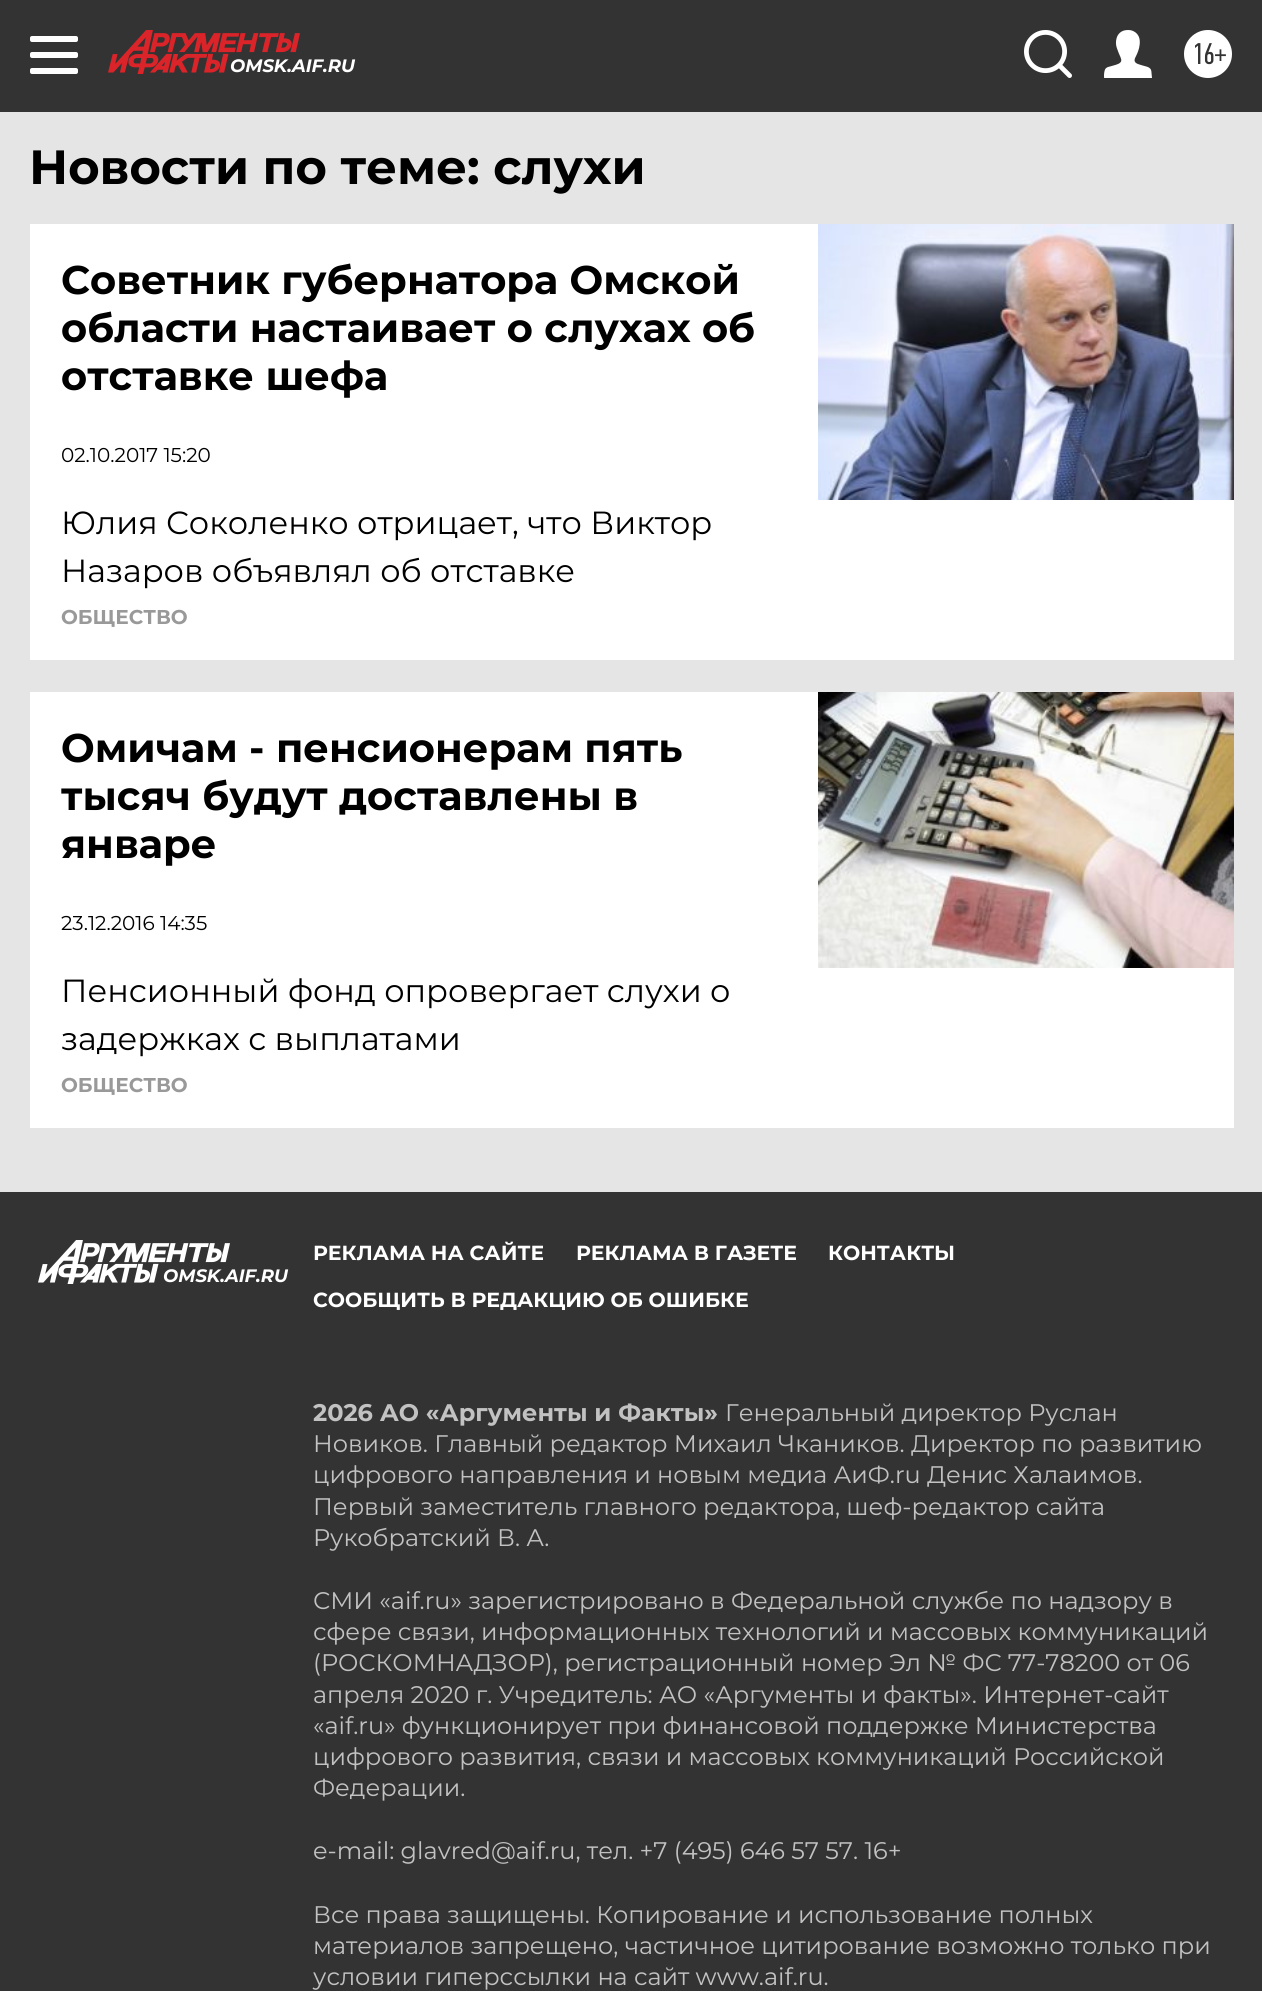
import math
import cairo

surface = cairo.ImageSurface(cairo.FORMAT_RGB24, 1262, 1991)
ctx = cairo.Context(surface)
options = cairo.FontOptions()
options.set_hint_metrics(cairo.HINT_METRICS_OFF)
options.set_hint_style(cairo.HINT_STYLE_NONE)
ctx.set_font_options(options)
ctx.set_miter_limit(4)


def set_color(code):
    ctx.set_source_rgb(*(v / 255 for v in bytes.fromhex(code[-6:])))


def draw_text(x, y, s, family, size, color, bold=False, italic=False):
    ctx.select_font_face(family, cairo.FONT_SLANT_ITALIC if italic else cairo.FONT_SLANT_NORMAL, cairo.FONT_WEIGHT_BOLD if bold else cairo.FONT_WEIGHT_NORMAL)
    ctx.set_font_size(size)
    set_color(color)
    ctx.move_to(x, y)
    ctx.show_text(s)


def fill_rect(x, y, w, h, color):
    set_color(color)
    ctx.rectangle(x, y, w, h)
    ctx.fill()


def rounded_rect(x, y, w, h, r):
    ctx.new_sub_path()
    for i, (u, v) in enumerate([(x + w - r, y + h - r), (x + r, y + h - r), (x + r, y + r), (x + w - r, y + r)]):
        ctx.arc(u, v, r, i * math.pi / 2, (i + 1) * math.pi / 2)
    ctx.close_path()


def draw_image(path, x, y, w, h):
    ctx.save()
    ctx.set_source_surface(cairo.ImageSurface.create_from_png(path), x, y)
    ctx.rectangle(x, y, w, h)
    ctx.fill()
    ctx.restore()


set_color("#e5e5e5")
ctx.paint()
fill_rect(0, 0, 1262, 112, "#333333")
set_color("#ffffff")
rounded_rect(30, 36, 48, 6, 2)
ctx.fill()
rounded_rect(30, 52, 48, 6, 2)
ctx.fill()
rounded_rect(30, 68, 48, 6, 2)
ctx.fill()
draw_image("assets/img1.png", 108, 30, 192, 44)
draw_text(230, 72, "OMSK.AIF.RU", "Montserrat", 18, "#ffffff", bold=True, italic=True)
draw_image("assets/img2.png", 1024, 30, 48, 48)
draw_image("assets/img3.png", 1104, 30, 48, 48)
ctx.arc(1208, 54, 24, 0, 2 * math.pi)
ctx.fill()
draw_text(1192, 64, "16+", "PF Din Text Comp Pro", 30, "#333333")
draw_text(29, 184, "Новости по теме: слухи", "Montserrat", 48, "#000000", bold=True)
fill_rect(30, 224, 1204, 436, "#ffffff")
draw_text(61, 294, "Советник губернатора Омской", "Montserrat", 40, "#000000", bold=True)
draw_text(61, 342, "области настаивает о слухах об", "Montserrat", 40, "#000000", bold=True)
draw_text(61, 390, "отставке шефа", "Montserrat", 40, "#000000", bold=True)
draw_text(61, 462, "02.10.2017 15:20", "Montserrat", 20, "#000000")
draw_text(61, 534, "Юлия Соколенко отрицает, что Виктор", "Montserrat", 32, "#000000")
draw_text(61, 582, "Назаров объявлял об отставке", "Montserrat", 32, "#000000")
draw_image("assets/img4.png", 818, 224, 416, 276)
draw_text(61, 624, "ОБЩЕСТВО", "Montserrat", 20, "#999999", bold=True)
fill_rect(30, 692, 1204, 436, "#ffffff")
draw_text(61, 762, "Омичам - пенсионерам пять", "Montserrat", 40, "#000000", bold=True)
draw_text(61, 810, "тысяч будут доставлены в", "Montserrat", 40, "#000000", bold=True)
draw_text(61, 858, "январе", "Montserrat", 40, "#000000", bold=True)
draw_text(61, 930, "23.12.2016 14:35", "Montserrat", 20, "#000000")
draw_text(61, 1002, "Пенсионный фонд опровергает слухи о", "Montserrat", 32, "#000000")
draw_text(61, 1050, "задержках с выплатами", "Montserrat", 32, "#000000")
draw_image("assets/img5.png", 818, 692, 416, 276)
draw_text(61, 1092, "ОБЩЕСТВО", "Montserrat", 20, "#999999", bold=True)
fill_rect(0, 1192, 1262, 799, "#333333")
draw_image("assets/img6.png", 38, 1240, 192, 44)
draw_text(163, 1282, "OMSK.AIF.RU", "Montserrat", 18, "#ffffff", bold=True, italic=True)
draw_text(313, 1260, "РЕКЛАМА НА САЙТЕ", "Montserrat", 20.4, "#ffffff", bold=True)
draw_text(576, 1260, "РЕКЛАМА В ГАЗЕТЕ", "Montserrat", 20.4, "#ffffff", bold=True)
draw_text(828, 1260, "КОНТАКТЫ", "Montserrat", 20.4, "#ffffff", bold=True)
draw_text(313, 1307, "СООБЩИТЬ В РЕДАКЦИЮ ОБ ОШИБКЕ", "Montserrat", 20.4, "#ffffff", bold=True)
draw_text(313, 1421, "2026 АО «Аргументы и Факты»", "Montserrat", 24, "#c2c2c2", bold=True)
draw_text(725, 1421, "Генеральный директор Руслан", "Montserrat", 24, "#c2c2c2")
draw_text(313, 1452, "Новиков. Главный редактор Михаил Чкаников. Директор по развитию", "Montserrat", 24, "#c2c2c2")
draw_text(313, 1483, "цифрового направления и новым медиа АиФ.ru Денис Халаимов.", "Montserrat", 24, "#c2c2c2")
draw_text(313, 1515, "Первый заместитель главного редактора, шеф-редактор сайта", "Montserrat", 24, "#c2c2c2")
draw_text(313, 1546, "Рукобратский В. А.", "Montserrat", 24, "#c2c2c2")
draw_text(313, 1609, "СМИ «aif.ru» зарегистрировано в Федеральной службе по надзору в", "Montserrat", 24, "#c2c2c2")
draw_text(313, 1640, "сфере связи, информационных технологий и массовых коммуникаций", "Montserrat", 24, "#c2c2c2")
draw_text(313, 1671, "(РОСКОМНАДЗОР), регистрационный номер Эл № ФС 77-78200 от 06", "Montserrat", 24, "#c2c2c2")
draw_text(313, 1703, "апреля 2020 г. Учредитель: АО «Аргументы и факты». Интернет-сайт", "Montserrat", 24, "#c2c2c2")
draw_text(313, 1734, "«aif.ru» функционирует при финансовой поддержке Министерства", "Montserrat", 24, "#c2c2c2")
draw_text(313, 1765, "цифрового развития, связи и массовых коммуникаций Российской", "Montserrat", 24, "#c2c2c2")
draw_text(313, 1796, "Федерации.", "Montserrat", 24, "#c2c2c2")
draw_text(313, 1859, "e-mail: glavred@aif.ru, тел. +7 (495) 646 57 57. 16+", "Montserrat", 24, "#c2c2c2")
draw_text(313, 1923, "Все права защищены. Копирование и использование полных", "Montserrat", 24, "#c2c2c2")
draw_text(313, 1954, "материалов запрещено, частичное цитирование возможно только при", "Montserrat", 24, "#c2c2c2")
draw_text(313, 1985, "условии гиперссылки на сайт www.aif.ru.", "Montserrat", 24, "#c2c2c2")
surface.write_to_png("output.png")
